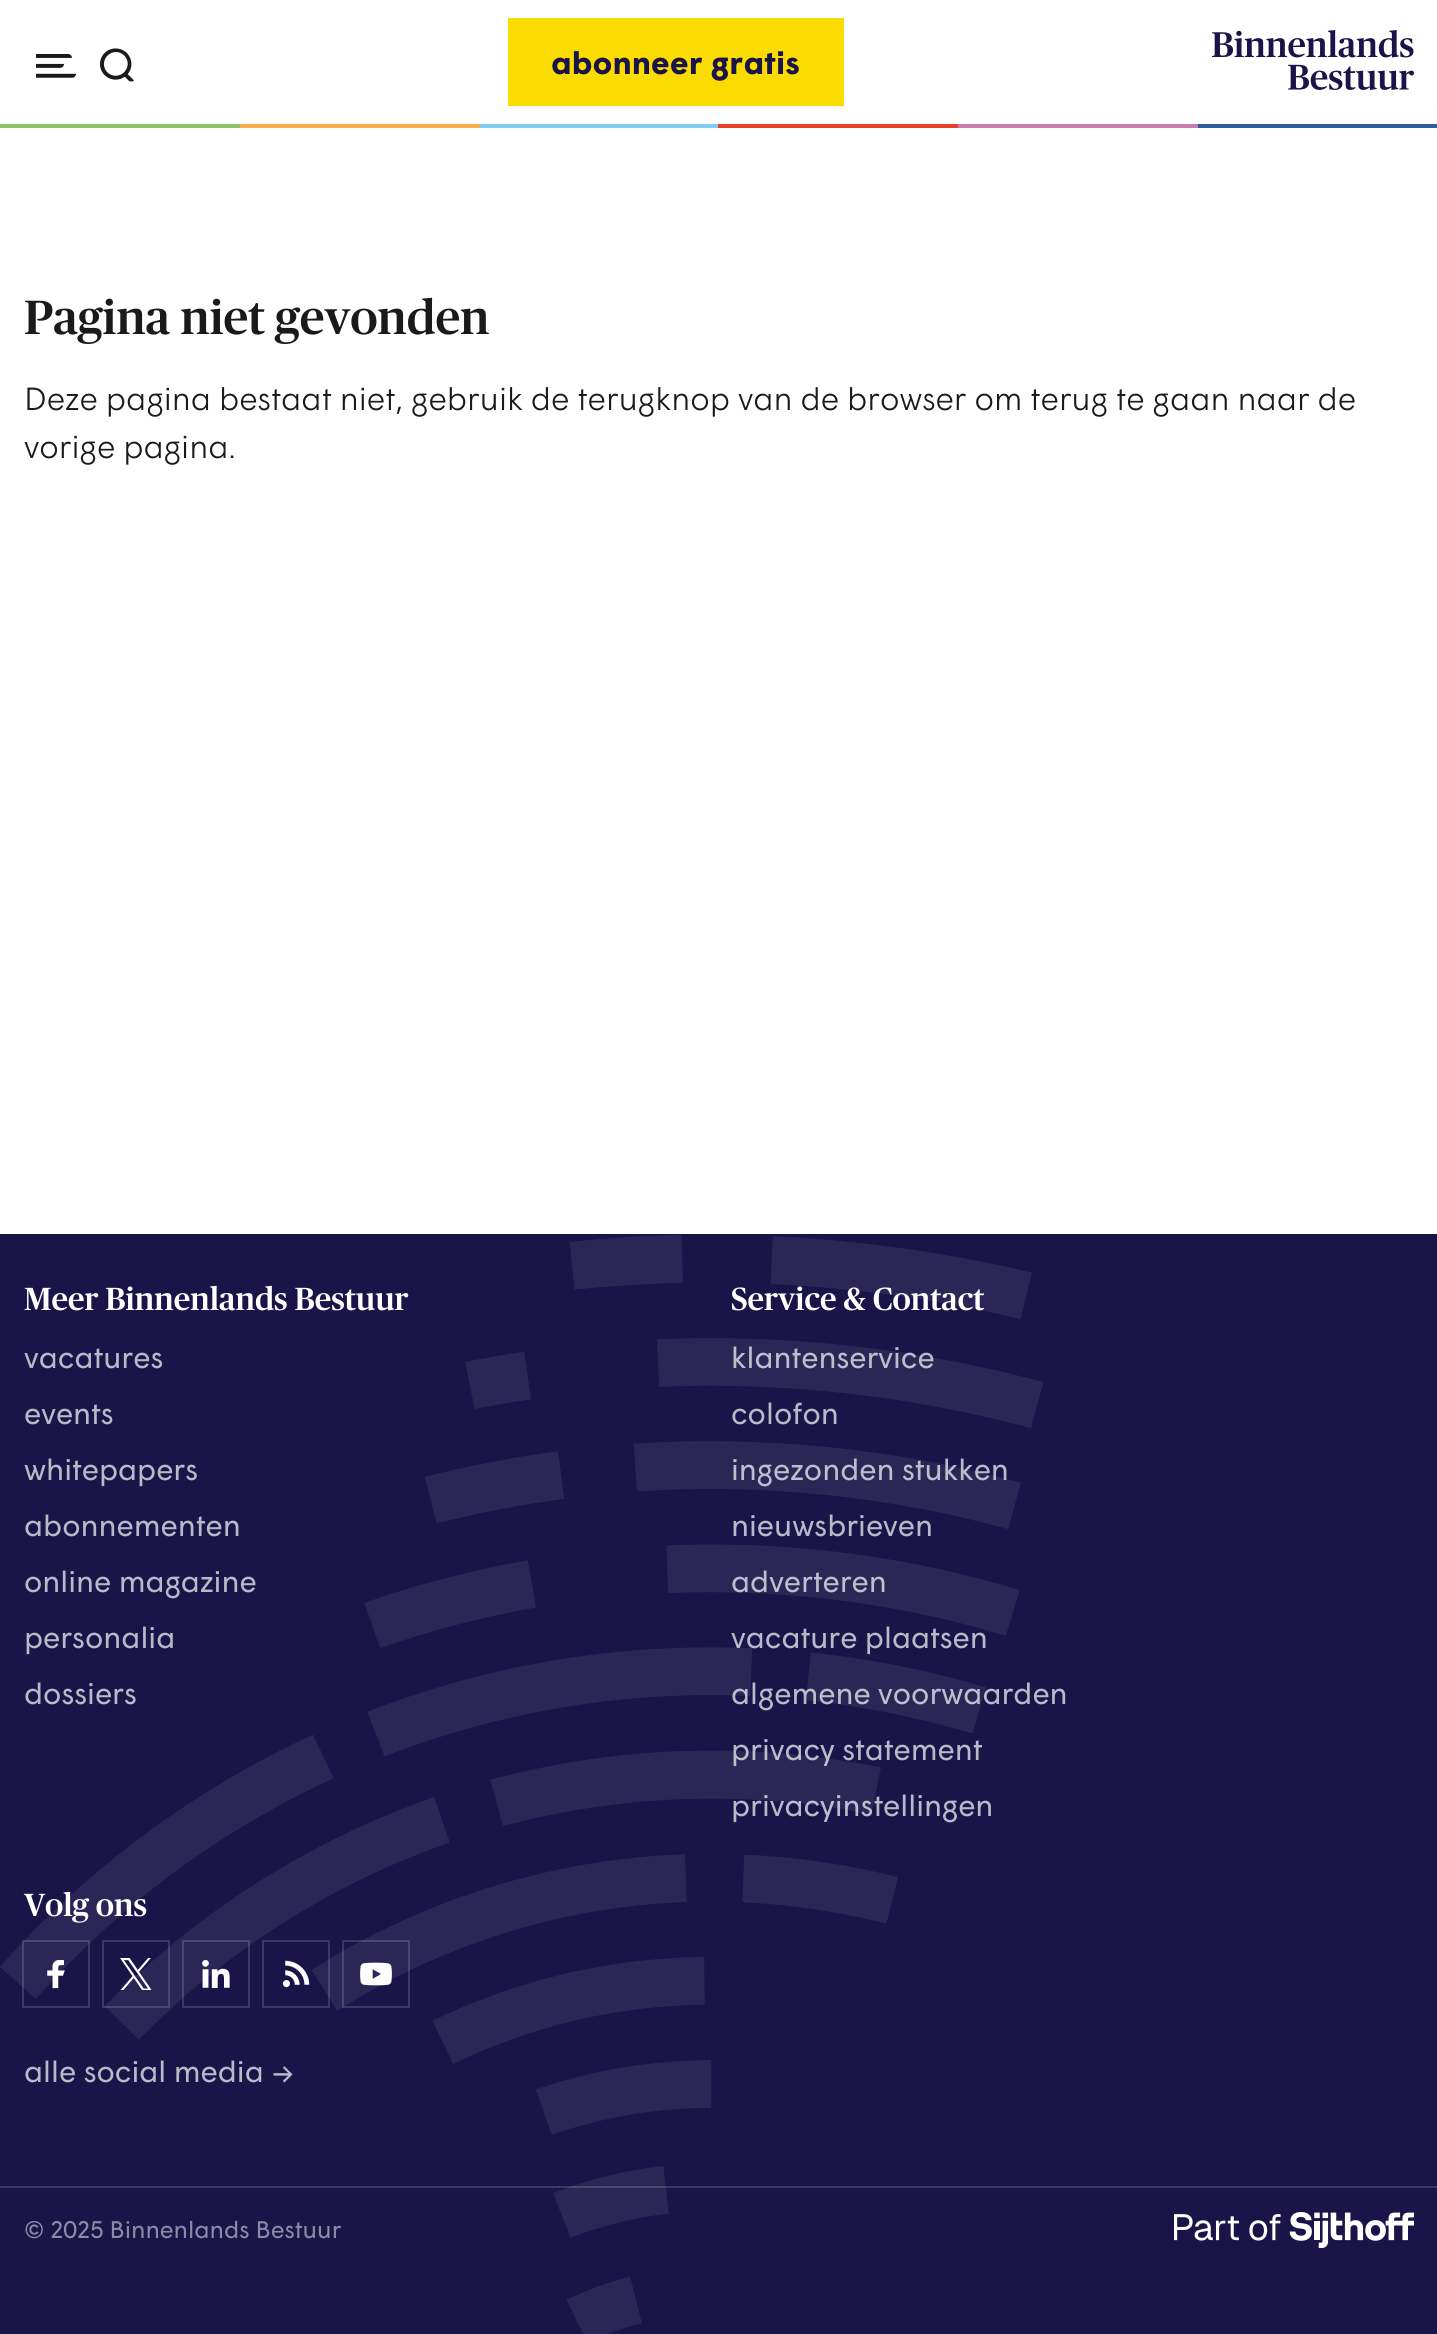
import math
import cairo

surface = cairo.ImageSurface(cairo.FORMAT_RGB24, 1437, 2334)
ctx = cairo.Context(surface)
options = cairo.FontOptions()
options.set_hint_metrics(cairo.HINT_METRICS_OFF)
options.set_hint_style(cairo.HINT_STYLE_NONE)
ctx.set_font_options(options)
ctx.set_miter_limit(4)


def set_color(code):
    ctx.set_source_rgb(*(v / 255 for v in bytes.fromhex(code[-6:])))


def draw_text(x, y, s, family, size, color, bold=False, italic=False):
    ctx.select_font_face(family, cairo.FONT_SLANT_ITALIC if italic else cairo.FONT_SLANT_NORMAL, cairo.FONT_WEIGHT_BOLD if bold else cairo.FONT_WEIGHT_NORMAL)
    ctx.set_font_size(size)
    set_color(color)
    ctx.move_to(x, y)
    ctx.show_text(s)


def fill_rect(x, y, w, h, color):
    set_color(color)
    ctx.rectangle(x, y, w, h)
    ctx.fill()


def draw_image(path, x, y, w, h):
    ctx.save()
    ctx.set_source_surface(cairo.ImageSurface.create_from_png(path), x, y)
    ctx.rectangle(x, y, w, h)
    ctx.fill()
    ctx.restore()


set_color("#ffffff")
ctx.paint()
draw_image("assets/img1.png", 36, 54, 40, 24)
draw_image("assets/img2.png", 100, 48, 34, 34)
fill_rect(508, 18, 336, 88, "#fbdc00")
draw_text(551, 74, "abonneer gratis", "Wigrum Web", 32, "#1a1449", bold=True)
draw_image("assets/img3.png", 1212, 30, 202, 60)
fill_rect(0, 124, 240, 4, "#90c369")
fill_rect(240, 124, 240, 4, "#f8ae4c")
fill_rect(480, 124, 238, 4, "#7fcff5")
fill_rect(718, 124, 240, 4, "#e8412a")
fill_rect(958, 124, 240, 4, "#cb7db3")
fill_rect(1198, 124, 239, 4, "#2d5d9f")
draw_text(24, 334, "Pagina niet gevonden", "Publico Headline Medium", 48, "#1a1a1a")
draw_text(24, 410, "Deze pagina bestaat niet, gebruik de terugknop van de browser om terug te gaan naar de", "Wigrum Web Light", 32, "#1a1a1a")
draw_text(24, 458, "vorige pagina.", "Wigrum Web Light", 32, "#1a1a1a")
fill_rect(0, 1234, 1437, 1100, "#1a1449")
draw_text(24, 1310, "Meer Binnenlands Bestuur", "Publico Headline Medium", 32, "#ffffff")
draw_text(24, 1368, "vacatures", "Wigrum Web", 30, "#bab9c8")
draw_text(24, 1424, "events", "Wigrum Web", 30, "#bab9c8")
draw_text(24, 1480, "whitepapers", "Wigrum Web", 30, "#bab9c8")
draw_text(24, 1536, "abonnementen", "Wigrum Web", 30, "#bab9c8")
draw_text(24, 1592, "online magazine", "Wigrum Web", 30, "#bab9c8")
draw_text(24, 1648, "personalia", "Wigrum Web", 30, "#bab9c8")
draw_text(24, 1704, "dossiers", "Wigrum Web", 30, "#bab9c8")
draw_text(731, 1310, "Service & Contact", "Publico Headline Medium", 32, "#ffffff")
draw_text(731, 1368, "klantenservice", "Wigrum Web", 30, "#bab9c8")
draw_text(731, 1424, "colofon", "Wigrum Web", 30, "#bab9c8")
draw_text(731, 1480, "ingezonden stukken", "Wigrum Web", 30, "#bab9c8")
draw_text(731, 1536, "nieuwsbrieven", "Wigrum Web", 30, "#bab9c8")
draw_text(731, 1592, "adverteren", "Wigrum Web", 30, "#bab9c8")
draw_text(731, 1648, "vacature plaatsen", "Wigrum Web", 30, "#bab9c8")
draw_text(731, 1704, "algemene voorwaarden", "Wigrum Web", 30, "#bab9c8")
draw_text(731, 1760, "privacy statement", "Wigrum Web", 30, "#bab9c8")
draw_text(731, 1816, "privacyinstellingen", "Wigrum Web", 30, "#bab9c8")
draw_text(24, 1916, "Volg ons", "Publico Headline Medium", 32, "#ffffff")
draw_image("assets/img5.png", 47, 1960, 18, 29)
ctx.rectangle(23, 1941, 66, 66)
set_color("#3c3764")
ctx.stroke()
draw_image("assets/img6.png", 120, 1958, 32, 32)
ctx.rectangle(103, 1941, 66, 66)
ctx.stroke()
draw_image("assets/img7.png", 202, 1960, 28, 28)
ctx.rectangle(183, 1941, 66, 66)
ctx.stroke()
draw_image("assets/img8.png", 282, 1960, 28, 28)
ctx.rectangle(263, 1941, 66, 66)
ctx.stroke()
draw_image("assets/img9.png", 360, 1962, 32, 24)
ctx.rectangle(343, 1941, 66, 66)
ctx.stroke()
draw_text(24, 2082, "alle social media →", "Wigrum Web", 30, "#bab9c8")
fill_rect(0, 2186, 1437, 2, "#3c3764")
draw_image("assets/img4.png", 0, 1235, 1043, 1099)
draw_text(24, 2238, "© 2025 Binnenlands Bestuur", "Wigrum Web", 24, "#8d8aa4")
draw_image("assets/img10.png", 1174, 2212, 240, 36)
surface.write_to_png("output.png")
